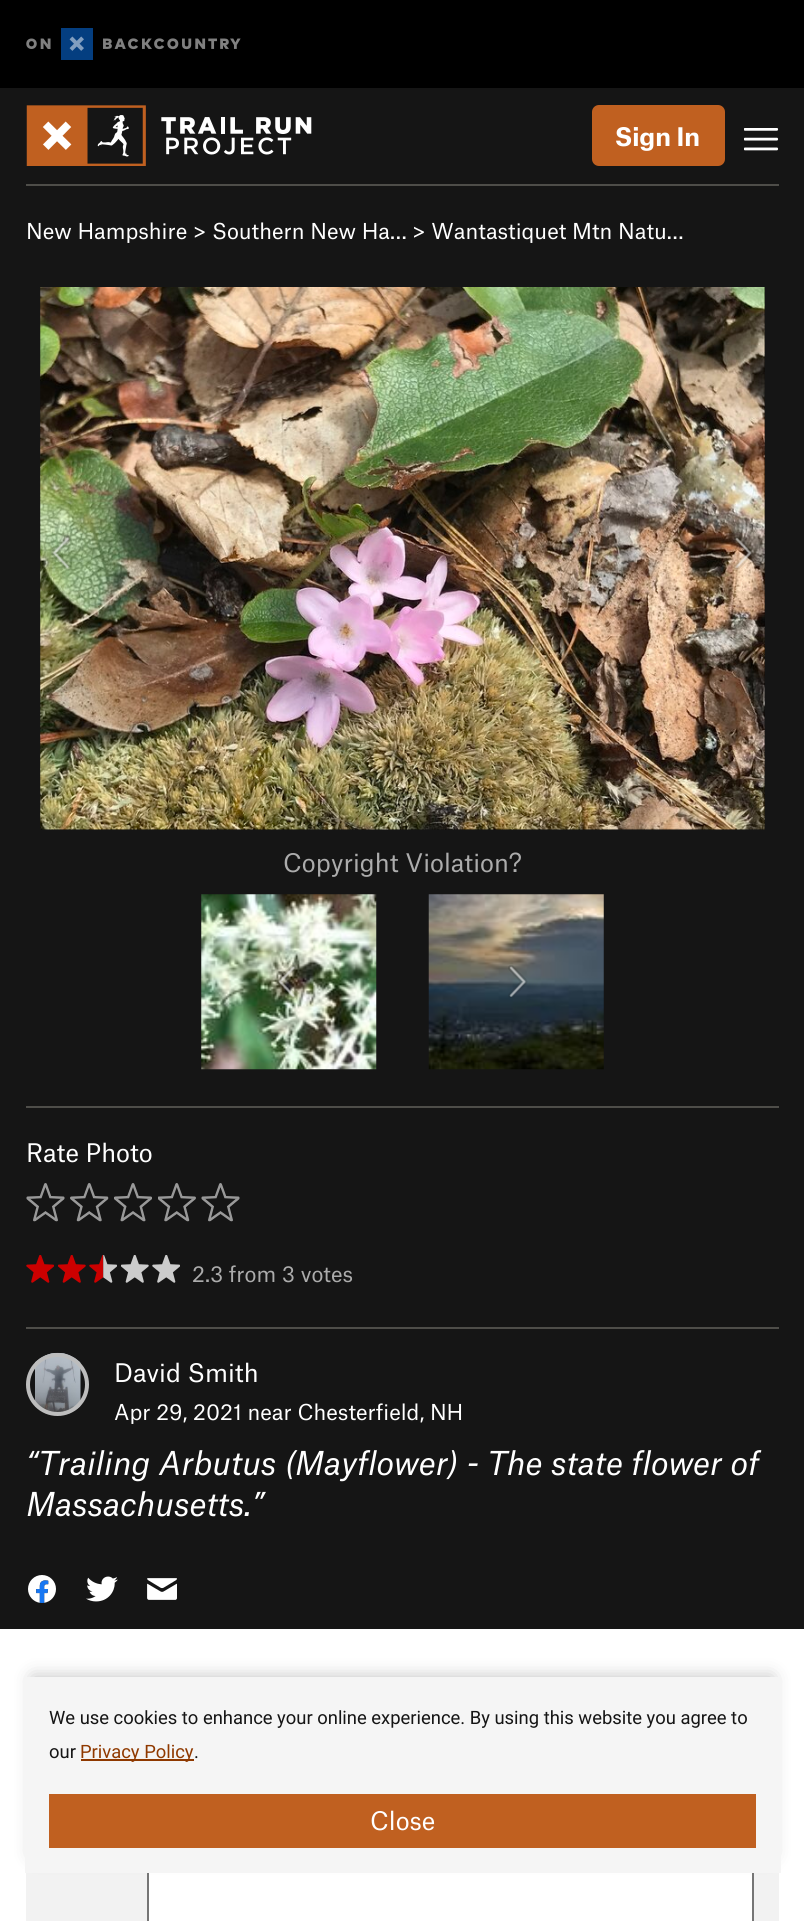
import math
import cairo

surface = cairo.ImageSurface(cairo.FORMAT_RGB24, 804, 1921)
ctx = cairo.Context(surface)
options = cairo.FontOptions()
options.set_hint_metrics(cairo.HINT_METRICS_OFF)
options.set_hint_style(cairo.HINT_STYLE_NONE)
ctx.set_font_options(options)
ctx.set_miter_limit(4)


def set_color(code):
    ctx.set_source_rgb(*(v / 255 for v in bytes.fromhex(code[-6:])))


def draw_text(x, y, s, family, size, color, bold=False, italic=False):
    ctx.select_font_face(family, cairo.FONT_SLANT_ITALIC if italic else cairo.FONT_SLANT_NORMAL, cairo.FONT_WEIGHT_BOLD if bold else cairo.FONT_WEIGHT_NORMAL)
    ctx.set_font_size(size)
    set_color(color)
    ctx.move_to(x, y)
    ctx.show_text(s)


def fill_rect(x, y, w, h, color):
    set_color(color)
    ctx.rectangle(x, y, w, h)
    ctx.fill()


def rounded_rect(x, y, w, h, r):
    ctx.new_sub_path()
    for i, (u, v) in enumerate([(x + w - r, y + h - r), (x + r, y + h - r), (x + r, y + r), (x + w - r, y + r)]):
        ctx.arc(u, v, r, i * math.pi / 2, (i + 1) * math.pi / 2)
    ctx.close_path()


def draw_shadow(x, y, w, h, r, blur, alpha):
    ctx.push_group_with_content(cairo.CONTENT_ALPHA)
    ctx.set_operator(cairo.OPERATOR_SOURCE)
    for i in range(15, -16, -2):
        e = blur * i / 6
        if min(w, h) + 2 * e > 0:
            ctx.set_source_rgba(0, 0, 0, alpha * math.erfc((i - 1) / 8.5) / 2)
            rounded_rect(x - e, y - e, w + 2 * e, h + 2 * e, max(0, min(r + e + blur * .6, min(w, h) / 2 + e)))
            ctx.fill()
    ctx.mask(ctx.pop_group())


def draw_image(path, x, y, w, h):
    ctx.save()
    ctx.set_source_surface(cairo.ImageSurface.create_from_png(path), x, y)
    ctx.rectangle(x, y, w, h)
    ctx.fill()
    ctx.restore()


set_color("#ffffff")
ctx.paint()
fill_rect(0, 88, 804, 1541, "#151515")
fill_rect(0, 0, 804, 88, "#000000")
draw_image("assets/img1.png", 26, 28, 215, 32)
draw_image("assets/img2.png", 26, 105, 286, 61)
set_color("#c06020")
rounded_rect(592, 105, 133, 61, 7)
ctx.fill()
draw_text(615, 146, "Sign In", "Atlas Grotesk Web", 24.5, "#ffffff", bold=True)
draw_image("assets/img3.png", 744, 128, 35, 23)
fill_rect(26, 184, 753, 2, "#4e4d49")
draw_text(26, 239, "New Hampshire > Southern New Ha… > Wantastiquet Mtn Natu…", "Atlas Grotesk Web", 21, "#ffffff")
draw_image("assets/img4.png", 40, 287, 725, 543)
draw_image("assets/img5.png", 51, 536, 20, 34)
draw_image("assets/img6.png", 733, 536, 20, 34)
draw_text(283, 872, "Copyright Violation?", "Atlas Grotesk Web", 24.5, "#acacac")
draw_image("assets/img7.png", 201, 894, 176, 176)
draw_image("assets/img8.png", 277, 964, 20, 35)
draw_image("assets/img9.png", 428, 894, 176, 176)
draw_image("assets/img10.png", 508, 965, 20, 33)
fill_rect(26, 1106, 753, 2, "#4e4d49")
draw_text(26, 1162, "Rate Photo", "Atlas Grotesk Web", 24.5, "#ffffff")
draw_image("assets/img11.png", 26, 1183, 39, 39)
draw_image("assets/img12.png", 70, 1183, 39, 39)
draw_image("assets/img13.png", 114, 1183, 38, 39)
draw_image("assets/img14.png", 158, 1183, 38, 39)
draw_image("assets/img11.png", 201, 1183, 39, 39)
draw_image("assets/img15.png", 26, 1255, 28, 28)
draw_image("assets/img16.png", 58, 1255, 28, 28)
draw_image("assets/img17.png", 89, 1255, 28, 28)
draw_image("assets/img18.png", 121, 1255, 28, 28)
draw_image("assets/img19.png", 152, 1255, 28, 28)
draw_text(192, 1282, "2.3 from 3 votes", "Atlas Grotesk Web", 21, "#acacac")
fill_rect(26, 1327, 753, 2, "#4e4d49")
draw_image("assets/img20.png", 35, 1352, 46, 64)
ctx.arc(57.5, 1384.5, 29.5, 0, 2 * math.pi)
set_color("#bdbdbd")
ctx.set_line_width(4)
ctx.stroke()
draw_text(114, 1382, "David Smith", "Atlas Grotesk Web", 24.5, "#ffffff")
draw_text(114, 1420, "Apr 29, 2021 near Chesterfield, NH", "Atlas Grotesk Web", 21, "#ffffff")
draw_text(26, 1475, "“Trailing Arbutus (Mayflower) - The state flower of", "Atlas Grotesk Web", 31.5, "#ffffff", italic=True)
draw_text(26, 1516, "Massachusetts.”", "Atlas Grotesk Web", 31.5, "#ffffff", italic=True)
draw_image("assets/img21.png", 28, 1575, 28, 28)
draw_image("assets/img22.png", 86, 1576, 32, 26)
draw_image("assets/img23.png", 147, 1578, 30, 22)
fill_rect(26, 1873, 753, 48, "#f2f2f2")
fill_rect(149, 1873, 603, 48, "#ffffff")
ctx.rectangle(148, 1793, 605, 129)
set_color("#767676")
ctx.set_line_width(2)
ctx.stroke()
set_color("#000000")
draw_shadow(33, 1677, 739, 178, 0, 9, 0.25)
fill_rect(25, 1677, 756, 196, "#f5f5f5")
draw_text(49, 1724, "We use cookies to enhance your online experience. By using this website you agree to", "Roboto", 18.4, "#151515")
draw_text(49, 1758, "our", "Roboto", 18.4, "#151515")
fill_rect(81, 1759, 113, 2, "#8f3900")
draw_text(80, 1758, "Privacy Policy", "Roboto", 18.4, "#8f3900")
draw_text(194, 1758, ".", "Roboto", 18.4, "#151515")
fill_rect(49, 1794, 707, 54, "#c06020")
draw_text(370, 1830, "Close", "Atlas Grotesk Web", 24.5, "#ffffff")
surface.write_to_png("output.png")
